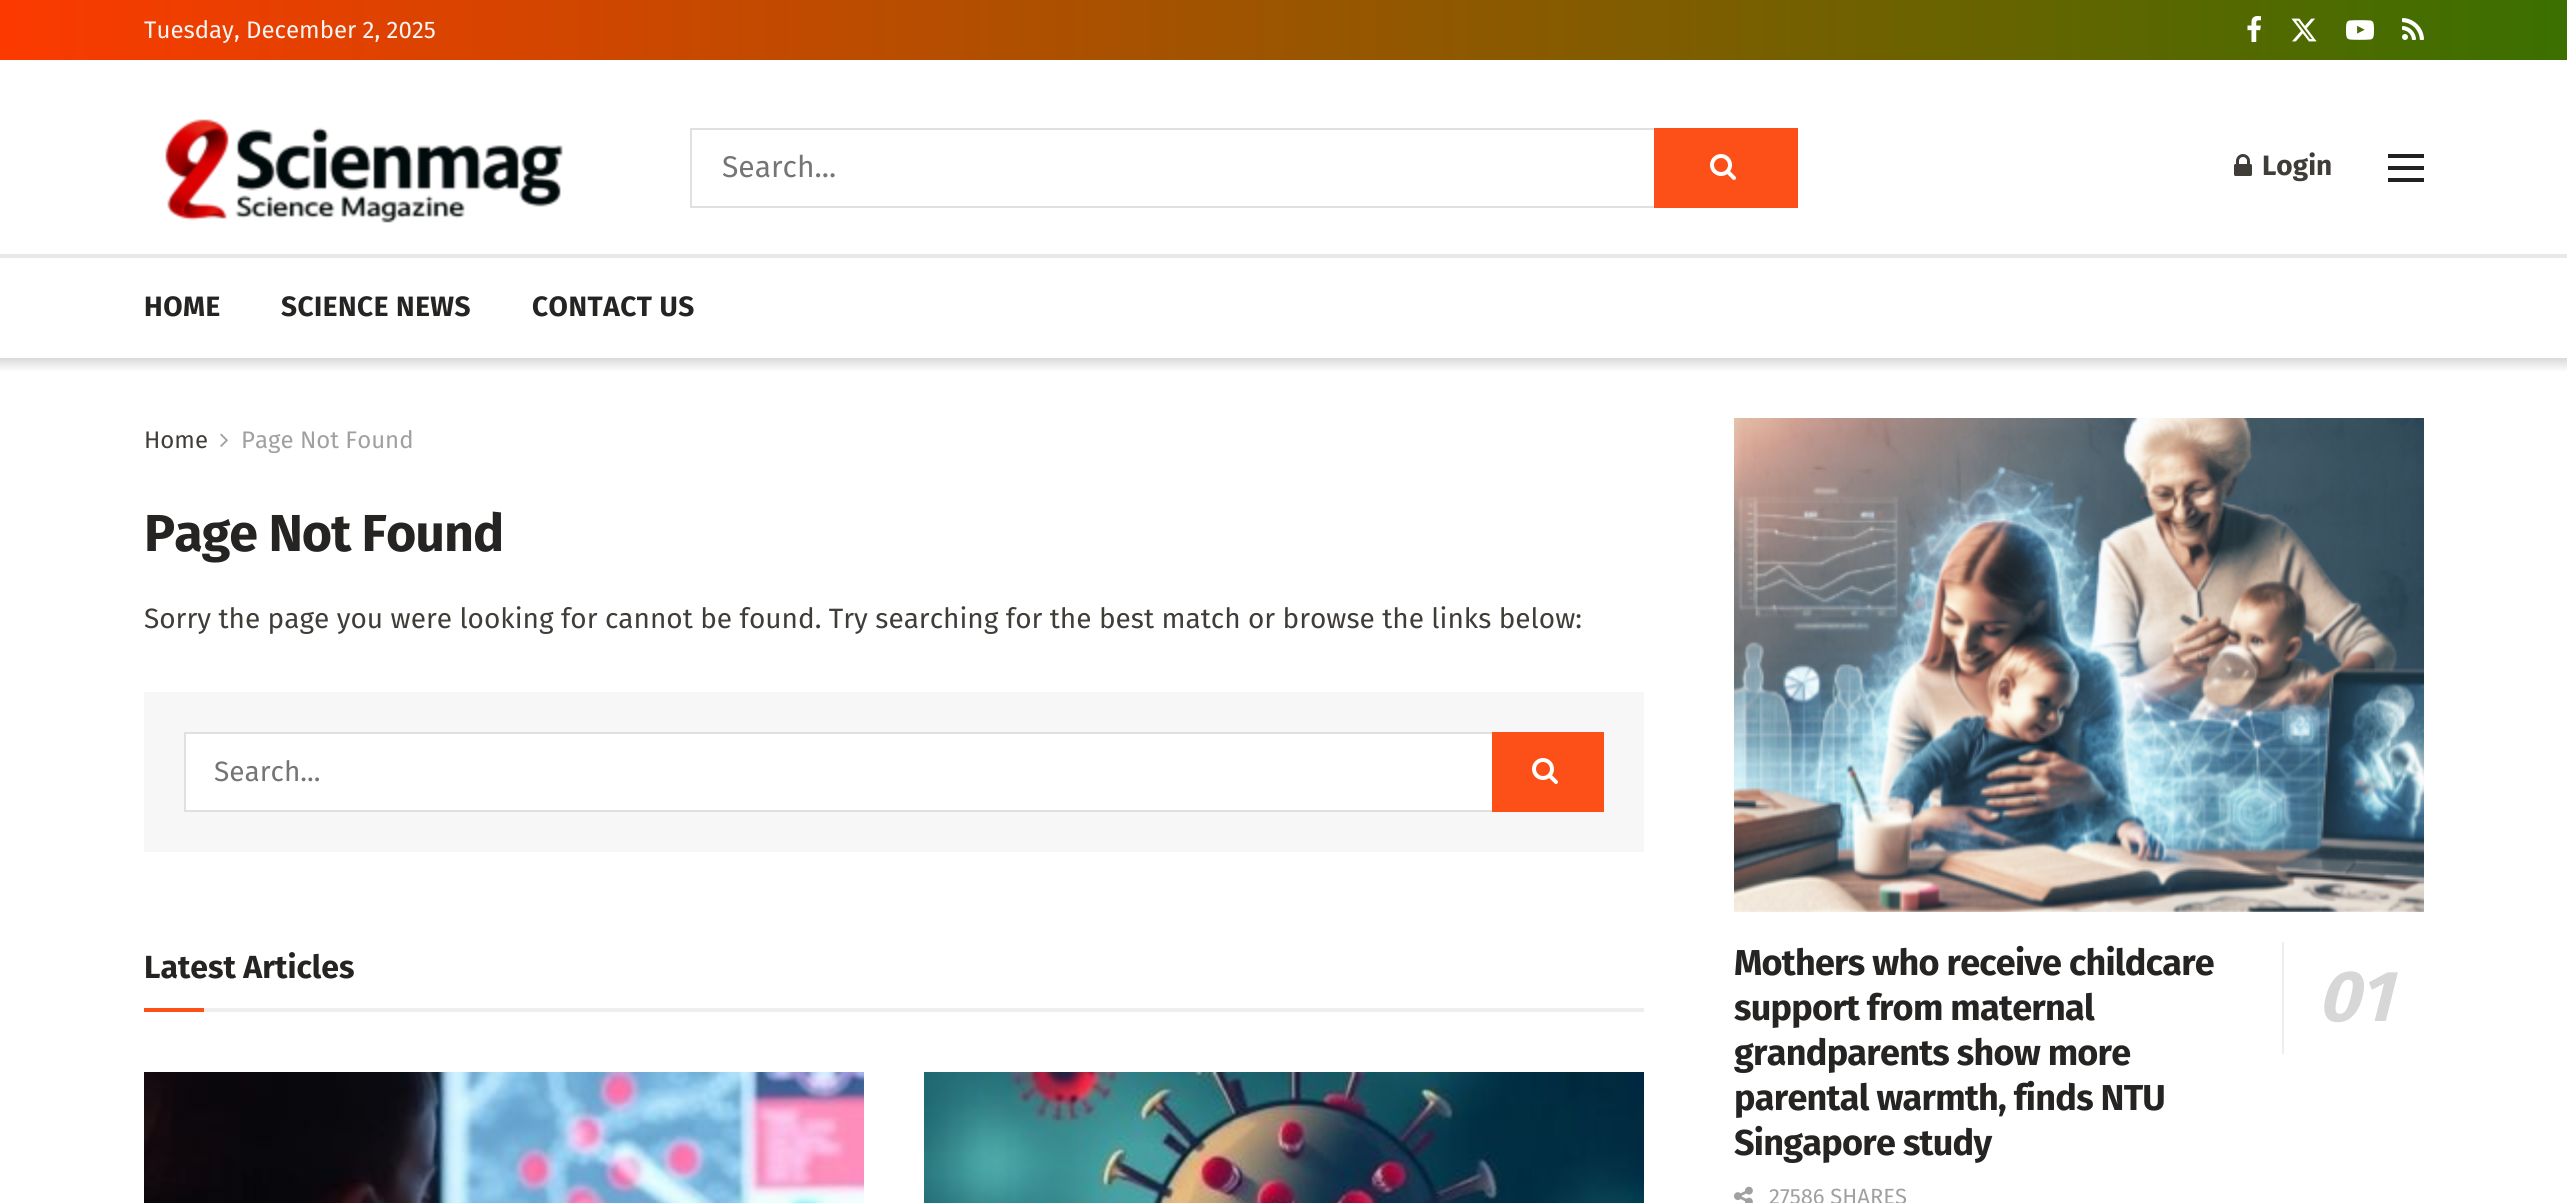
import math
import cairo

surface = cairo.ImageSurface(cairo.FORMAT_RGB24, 2567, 1203)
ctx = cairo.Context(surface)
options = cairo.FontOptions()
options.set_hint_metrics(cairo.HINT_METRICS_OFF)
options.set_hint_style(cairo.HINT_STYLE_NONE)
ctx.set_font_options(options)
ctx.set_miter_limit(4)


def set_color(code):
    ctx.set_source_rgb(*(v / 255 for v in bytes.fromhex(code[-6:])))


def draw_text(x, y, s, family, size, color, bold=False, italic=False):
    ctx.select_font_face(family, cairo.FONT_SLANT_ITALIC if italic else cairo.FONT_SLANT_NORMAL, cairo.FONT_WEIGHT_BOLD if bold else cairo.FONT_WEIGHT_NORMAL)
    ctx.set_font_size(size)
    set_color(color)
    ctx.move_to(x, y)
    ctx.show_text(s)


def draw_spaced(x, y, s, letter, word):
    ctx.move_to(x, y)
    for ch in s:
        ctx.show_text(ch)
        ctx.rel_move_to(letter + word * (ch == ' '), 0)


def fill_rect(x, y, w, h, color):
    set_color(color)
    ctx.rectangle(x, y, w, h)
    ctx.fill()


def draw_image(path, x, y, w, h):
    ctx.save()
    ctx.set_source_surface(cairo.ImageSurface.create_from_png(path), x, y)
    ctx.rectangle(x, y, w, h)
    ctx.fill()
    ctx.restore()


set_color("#ffffff")
ctx.paint()
gradient = cairo.LinearGradient(0, 30, 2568, 30)
gradient.add_color_stop_rgba(0, 0.988, 0.227, 0, 1)
gradient.add_color_stop_rgba(1, 0.231, 0.439, 0, 1)
ctx.set_source(gradient)
ctx.rectangle(0, 0, 2567, 60)
ctx.fill()
draw_text(144, 38, "Tuesday, December 2, 2025", "Fira Sans", 24, "#f5f5f5")
draw_image("assets/img1.png", 2247, 16, 14, 26)
draw_image("assets/img2.png", 2291, 18, 26, 24)
draw_image("assets/img3.png", 2346, 20, 28, 20)
draw_image("assets/img4.png", 2402, 18, 22, 22)
draw_image("assets/img5.png", 165, 119, 398, 104)
ctx.rectangle(691, 129, 1106, 78)
set_color("#e0e0e0")
ctx.stroke()
draw_text(722, 177, "Search...", "Fira Sans", 30, "#757575")
fill_rect(1654, 128, 144, 80, "#fd4f18")
draw_image("assets/img6.png", 1710, 154, 26, 26)
draw_image("assets/img7.png", 2234, 154, 18, 22)
draw_text(2262, 175, "Login", "Fira Sans", 28, "#403d39", bold=True)
fill_rect(2388, 154, 36, 4, "#212121")
fill_rect(2388, 166, 36, 4, "#212121")
fill_rect(2388, 178, 36, 4, "#212121")
fill_rect(0, 254, 2567, 4, "#e8e8e8")
set_color("#252422")
draw_spaced(144, 316, "HOME", 0.5, 0)
draw_spaced(281, 316, "SCIENCE NEWS", 0.5, 0)
draw_spaced(532, 316, "CONTACT US", 0.5, 0)
gradient = cairo.LinearGradient(1284, 358, 1284, 372)
gradient.add_color_stop_rgba(0, 0.851, 0.851, 0.851, 1)
gradient.add_color_stop_rgba(1, 1, 1, 1, 1)
ctx.set_source(gradient)
ctx.rectangle(0, 358, 2567, 13)
ctx.fill()
draw_text(144, 448, "Home", "Fira Sans", 24, "#403d39")
draw_image("assets/img8.png", 220, 433, 8, 14)
draw_text(241, 448, "Page Not Found", "Fira Sans", 24, "#a0a0a0")
ctx.select_font_face("Fira Sans", cairo.FONT_SLANT_NORMAL, cairo.FONT_WEIGHT_BOLD)
ctx.set_font_size(52)
set_color("#252422")
draw_spaced(144, 551, "Page Not Found", -1, 0)
draw_text(144, 628, "Sorry the page you were looking for cannot be found. Try searching for the best match or browse the links below:", "Fira Sans", 28, "#403d39")
fill_rect(144, 692, 1500, 160, "#f7f7f7")
fill_rect(186, 734, 1306, 76, "#ffffff")
ctx.rectangle(185, 733, 1418, 78)
set_color("#e0e0e0")
ctx.stroke()
draw_text(214, 781, "Search...", "Fira Sans", 28, "#757575")
fill_rect(1492, 732, 112, 80, "#fd4f18")
draw_image("assets/img6.png", 1532, 758, 26, 26)
fill_rect(204, 1008, 1440, 4, "#eeeeee")
draw_text(144, 978, "Latest Articles", "Fira Sans", 32, "#252422", bold=True)
fill_rect(144, 1008, 60, 4, "#fd4f18")
draw_image("assets/img9.png", 144, 1072, 720, 131)
draw_image("assets/img10.png", 924, 1072, 720, 131)
fill_rect(1734, 910, 690, 2, "#f7f7f7")
draw_image("assets/img11.png", 1734, 418, 690, 494)
ctx.set_font_size(36)
set_color("#252422")
draw_spaced(1734, 975, "Mothers who receive childcare", -0.75, 0)
draw_spaced(1734, 1020, "support from maternal", -0.75, 0)
fill_rect(2282, 942, 2, 112, "#eeeeee")
ctx.select_font_face("Fira Sans", cairo.FONT_SLANT_ITALIC, cairo.FONT_WEIGHT_BOLD)
ctx.set_font_size(72)
set_color("#d7d7d7")
draw_spaced(2317, 1021, "01", -0.75, 0)
ctx.select_font_face("Fira Sans", cairo.FONT_SLANT_NORMAL, cairo.FONT_WEIGHT_BOLD)
ctx.set_font_size(36)
set_color("#252422")
draw_spaced(1734, 1065, "grandparents show more", -0.75, 0)
draw_spaced(1734, 1110, "parental warmth, finds NTU", -0.75, 0)
draw_spaced(1734, 1155, "Singapore study", -0.75, 0)
draw_image("assets/img12.png", 1734, 1186, 19, 17)
draw_text(1769, 1204, "27586 SHARES", "Fira Sans", 22, "#a0a0a0")
surface.write_to_png("output.png")
